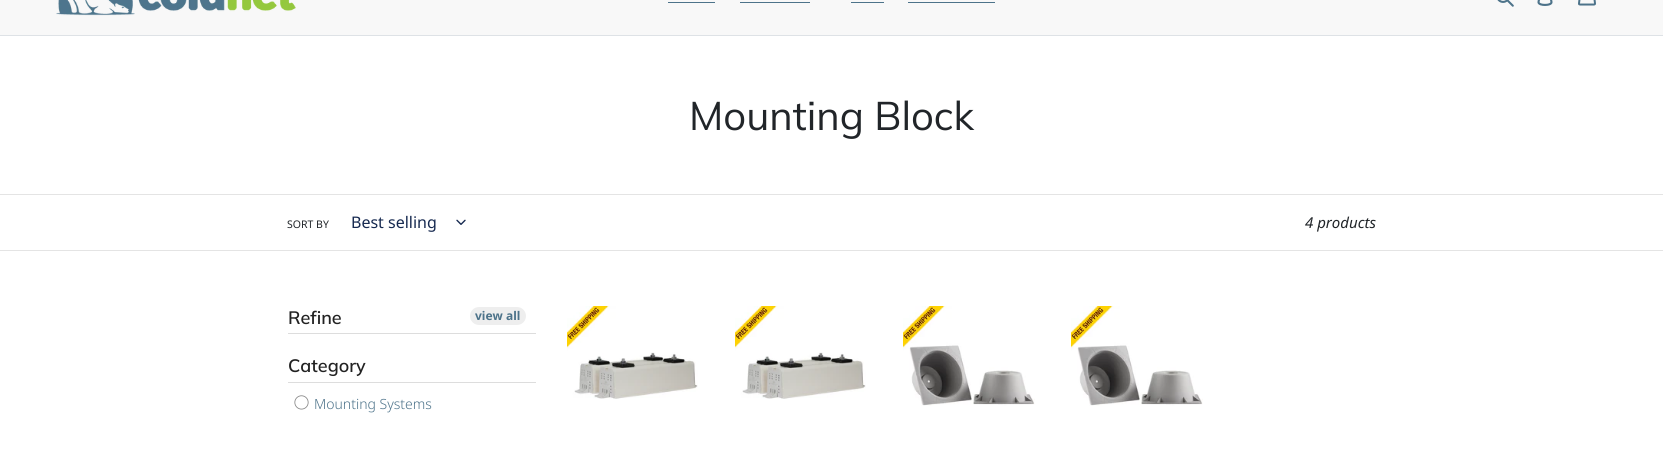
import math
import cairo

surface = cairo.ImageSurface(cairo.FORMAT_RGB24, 1663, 450)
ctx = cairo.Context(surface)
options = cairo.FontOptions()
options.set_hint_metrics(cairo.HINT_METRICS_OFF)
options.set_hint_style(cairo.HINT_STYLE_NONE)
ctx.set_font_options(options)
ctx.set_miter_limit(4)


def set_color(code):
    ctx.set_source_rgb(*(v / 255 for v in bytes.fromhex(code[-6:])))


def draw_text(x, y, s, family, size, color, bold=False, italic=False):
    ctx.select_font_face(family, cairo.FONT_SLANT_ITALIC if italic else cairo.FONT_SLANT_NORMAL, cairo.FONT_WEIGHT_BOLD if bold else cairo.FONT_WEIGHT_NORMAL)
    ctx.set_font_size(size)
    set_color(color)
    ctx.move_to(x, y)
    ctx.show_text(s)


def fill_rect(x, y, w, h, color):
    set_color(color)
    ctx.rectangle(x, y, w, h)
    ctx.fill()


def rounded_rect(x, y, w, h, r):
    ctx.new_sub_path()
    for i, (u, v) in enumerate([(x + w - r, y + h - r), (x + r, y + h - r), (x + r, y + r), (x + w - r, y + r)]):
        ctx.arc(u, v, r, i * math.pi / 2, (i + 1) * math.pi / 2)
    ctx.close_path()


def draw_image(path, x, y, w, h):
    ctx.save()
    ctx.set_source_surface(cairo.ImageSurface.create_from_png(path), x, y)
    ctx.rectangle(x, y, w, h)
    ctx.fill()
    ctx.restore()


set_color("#ffffff")
ctx.paint()
fill_rect(0, 0, 1663, 35, "#f8f8f8")
fill_rect(0, 35, 1663, 1, "#dee2e6")
draw_image("assets/img1.png", 56, 0, 240, 16)
fill_rect(668, 2, 47, 1, "#4d738a")
fill_rect(740, 2, 70, 1, "#4d738a")
fill_rect(851, 2, 33, 1, "#4d738a")
fill_rect(908, 2, 87, 1, "#4d738a")
draw_image("assets/img2.png", 1497, 0, 17, 7)
draw_image("assets/img3.png", 1537, 0, 16, 6)
draw_image("assets/img4.png", 1578, 0, 18, 6)
draw_text(689, 130, "Mounting Block", "Muli", 40, "#212529")
fill_rect(0, 194, 1663, 1, "#e4e4e4")
fill_rect(0, 250, 1663, 1, "#e4e4e4")
draw_text(287, 228, "SORT BY", "Noto Sans", 10.5, "#212529")
draw_text(351, 228, "Best selling", "Noto Sans", 16, "#162950")
draw_image("assets/img5.png", 456, 219, 10, 6)
draw_text(1305, 228, "4 products", "Noto Sans", 15, "#212529", italic=True)
fill_rect(288, 333, 248, 1, "#dddddd")
draw_text(288, 324, "Refine", "Muli SemiBold", 18, "#222222")
set_color("#eeeeee")
rounded_rect(470, 307, 56, 18, 9)
ctx.fill()
draw_text(475, 320, "view all", "Noto Sans", 12, "#4d738a", bold=True)
fill_rect(288, 382, 248, 1, "#dddddd")
draw_text(288, 372, "Category", "Muli SemiBold", 18, "#222222")
draw_image("assets/img6.png", 294, 395, 15, 15)
draw_text(314, 409, "Mounting Systems", "Noto Sans Light", 14, "#4d738a")
draw_image("assets/img7.png", 567, 306, 131, 93)
draw_image("assets/img7.png", 735, 306, 131, 93)
draw_image("assets/img8.png", 903, 306, 132, 100)
draw_image("assets/img9.png", 1071, 306, 132, 100)
surface.write_to_png("output.png")
